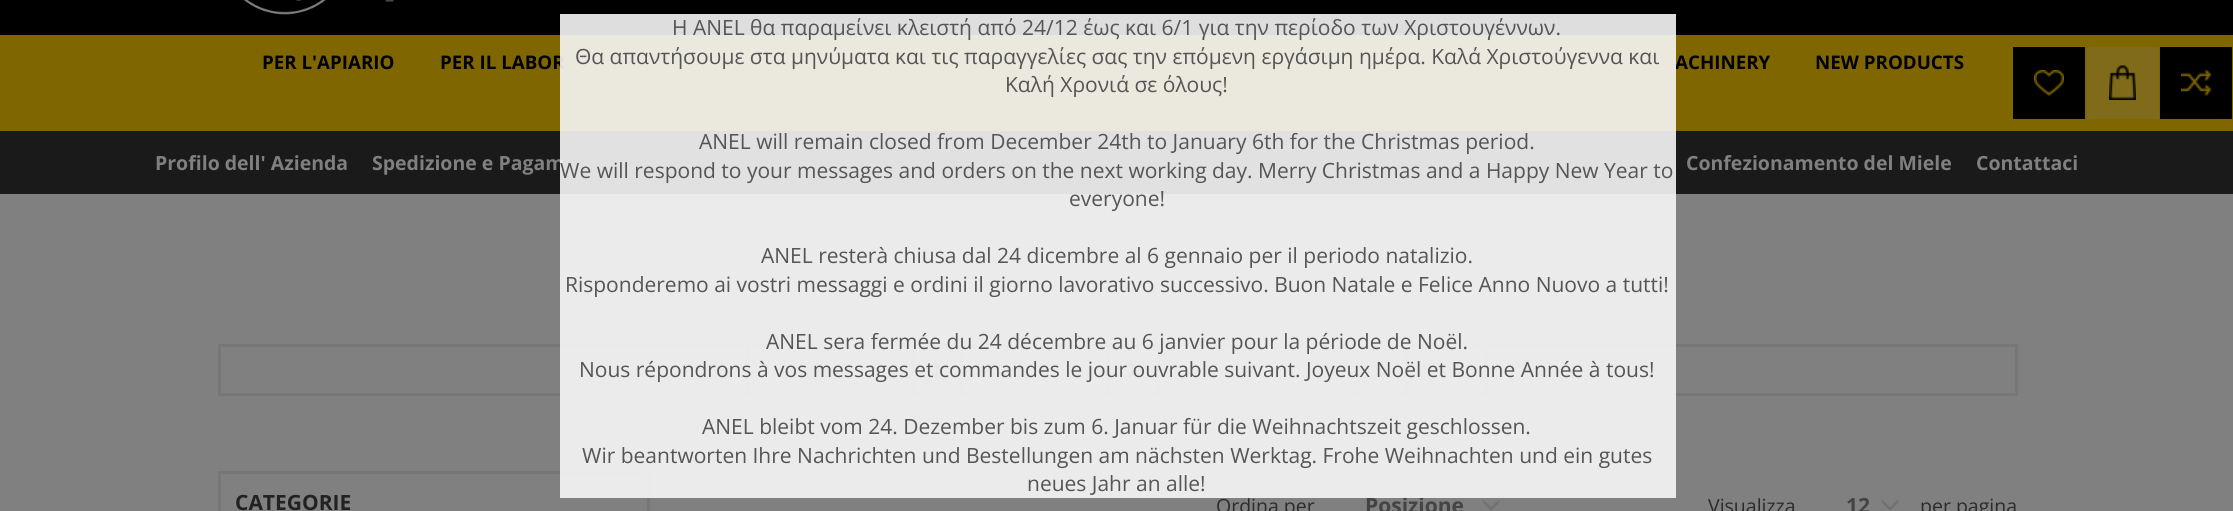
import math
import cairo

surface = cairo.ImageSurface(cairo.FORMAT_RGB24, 2233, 511)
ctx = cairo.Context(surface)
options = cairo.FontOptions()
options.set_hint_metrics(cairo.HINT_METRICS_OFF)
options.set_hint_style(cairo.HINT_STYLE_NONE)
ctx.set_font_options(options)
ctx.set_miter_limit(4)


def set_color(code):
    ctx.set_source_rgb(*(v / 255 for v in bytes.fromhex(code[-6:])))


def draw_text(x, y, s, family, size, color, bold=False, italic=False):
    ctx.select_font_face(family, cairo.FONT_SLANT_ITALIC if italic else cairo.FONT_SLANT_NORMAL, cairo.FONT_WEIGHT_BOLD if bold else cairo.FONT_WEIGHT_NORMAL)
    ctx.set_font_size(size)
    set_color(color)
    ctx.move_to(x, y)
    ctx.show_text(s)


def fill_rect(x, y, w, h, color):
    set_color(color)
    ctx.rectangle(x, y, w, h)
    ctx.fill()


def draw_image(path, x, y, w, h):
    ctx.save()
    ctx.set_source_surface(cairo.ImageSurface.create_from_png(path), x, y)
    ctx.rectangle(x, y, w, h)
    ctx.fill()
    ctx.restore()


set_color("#808080")
ctx.paint()
fill_rect(0, 0, 2233, 35, "#000000")
fill_rect(0, 35, 2233, 96, "#806601")
draw_text(440, 69, "PER IL LABOR", "Open Sans", 18.75, "#000000", bold=True)
draw_text(1675, 69, "ACHINERY", "Open Sans", 18.75, "#000000", bold=True)
fill_rect(0, 131, 2233, 63, "#1a1a1a")
draw_text(372, 170, "Spedizione e Pagam", "Open Sans", 19.5, "#808080", bold=True)
fill_rect(218, 344, 1800, 3, "#777777")
ctx.rectangle(747.5, 345.5, 165, 49)
ctx.set_line_width(3)
ctx.stroke()
draw_image("assets/img6.png", 933, 362, 9, 16)
ctx.rectangle(912.5, 345.5, 49, 49)
ctx.stroke()
ctx.rectangle(961.5, 345.5, 147, 49)
ctx.stroke()
draw_image("assets/img7.png", 1128, 362, 9, 16)
ctx.rectangle(1108.5, 345.5, 50, 49)
ctx.stroke()
ctx.rectangle(1158.5, 345.5, 199, 49)
ctx.stroke()
draw_image("assets/img8.png", 1378, 362, 10, 16)
ctx.rectangle(1357.5, 345.5, 50, 49)
ctx.stroke()
ctx.rectangle(1407.5, 345.5, 79, 49)
ctx.stroke()
fill_rect(221, 393, 1794, 3, "#777777")
ctx.rectangle(219.5, 472.5, 429, 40)
ctx.stroke()
draw_text(1365, 513, "Posizione", "Open Sans", 21, "#444444", bold=True)
ctx.set_source_rgba(0.965, 0.965, 0.965, 0.9)
ctx.rectangle(560, 14, 1116, 484)
ctx.fill()
draw_text(672, 35, "Η ΑΝΕL θα παραμείνει κλειστή από 24/12 έως και 6/1 για την περίοδο των Χριστουγέννων.", "Open Sans", 21, "#555555")
draw_text(575, 64, "Θα απαντήσουμε στα μηνύματα και τις παραγγελίες σας την επόμενη εργάσιμη ημέρα. Καλά Χριστούγεννα και", "Open Sans", 21, "#555555")
draw_text(1005, 92, "Καλή Χρονιά σε όλους!", "Open Sans", 21, "#555555")
draw_text(699, 149, "ANEL will remain closed from December 24th to January 6th for the Christmas period.", "Open Sans", 21, "#555555")
draw_text(560, 178, "We will respond to your messages and orders on the next working day. Merry Christmas and a Happy New Year to", "Open Sans", 21, "#555555")
draw_text(1069, 206, "everyone!", "Open Sans", 21, "#555555")
draw_text(761, 263, "ANEL resterà chiusa dal 24 dicembre al 6 gennaio per il periodo natalizio.", "Open Sans", 21, "#555555")
draw_text(565, 292, "Risponderemo ai vostri messaggi e ordini il giorno lavorativo successivo. Buon Natale e Felice Anno Nuovo a tutti!", "Open Sans", 21, "#555555")
draw_text(766, 349, "ANEL sera fermée du 24 décembre au 6 janvier pour la période de Noël.", "Open Sans", 21, "#555555")
draw_text(579, 377, "Nous répondrons à vos messages et commandes le jour ouvrable suivant. Joyeux Noël et Bonne Année à tous!", "Open Sans", 21, "#555555")
draw_text(702, 434, "ANEL bleibt vom 24. Dezember bis zum 6. Januar für die Weihnachtszeit geschlossen.", "Open Sans", 21, "#555555")
draw_text(582, 463, "Wir beantworten Ihre Nachrichten und Bestellungen am nächsten Werktag. Frohe Weihnachten und ein gutes", "Open Sans", 21, "#555555")
draw_text(1027, 491, "neues Jahr an alle!", "Open Sans", 21, "#555555")
draw_image("assets/img1.png", 243, 0, 83, 15)
draw_image("assets/img2.png", 385, 0, 9, 2)
draw_text(262, 69, "PER L'APIARIO", "Open Sans", 18.75, "#000000", bold=True)
draw_text(1815, 69, "NEW PRODUCTS", "Open Sans", 18.75, "#000000", bold=True)
fill_rect(2013, 47, 72, 72, "#000000")
draw_image("assets/img3.png", 2034, 70, 30, 26)
fill_rect(2087, 47, 72, 72, "#806b1a")
draw_image("assets/img4.png", 2109, 65, 27, 35)
fill_rect(2160, 47, 72, 72, "#000000")
draw_image("assets/img5.png", 2181, 70, 30, 26)
draw_text(155, 170, "Profilo dell' Azienda", "Open Sans", 19.5, "#808080", bold=True)
draw_text(1686, 170, "Confezionamento del Miele", "Open Sans", 19.5, "#808080", bold=True)
draw_text(1976, 170, "Contattaci", "Open Sans", 19.5, "#808080", bold=True)
fill_rect(2015, 344, 3, 52, "#777777")
fill_rect(218, 344, 3, 52, "#777777")
draw_text(235, 510, "CATEGORIE", "Open Sans", 21, "#222222", bold=True)
draw_text(1216, 513, "Ordina per", "Open Sans", 19.5, "#2b2b2b")
draw_image("assets/img9.png", 1482, 500, 18, 11)
draw_text(1708, 513, "Visualizza", "Open Sans", 19.5, "#2b2b2b")
draw_image("assets/img9.png", 1881, 500, 18, 11)
draw_text(1846, 513, "12", "Open Sans", 21, "#444444", bold=True)
draw_text(1920, 513, "per pagina", "Open Sans", 19.5, "#2b2b2b")
surface.write_to_png("output.png")
